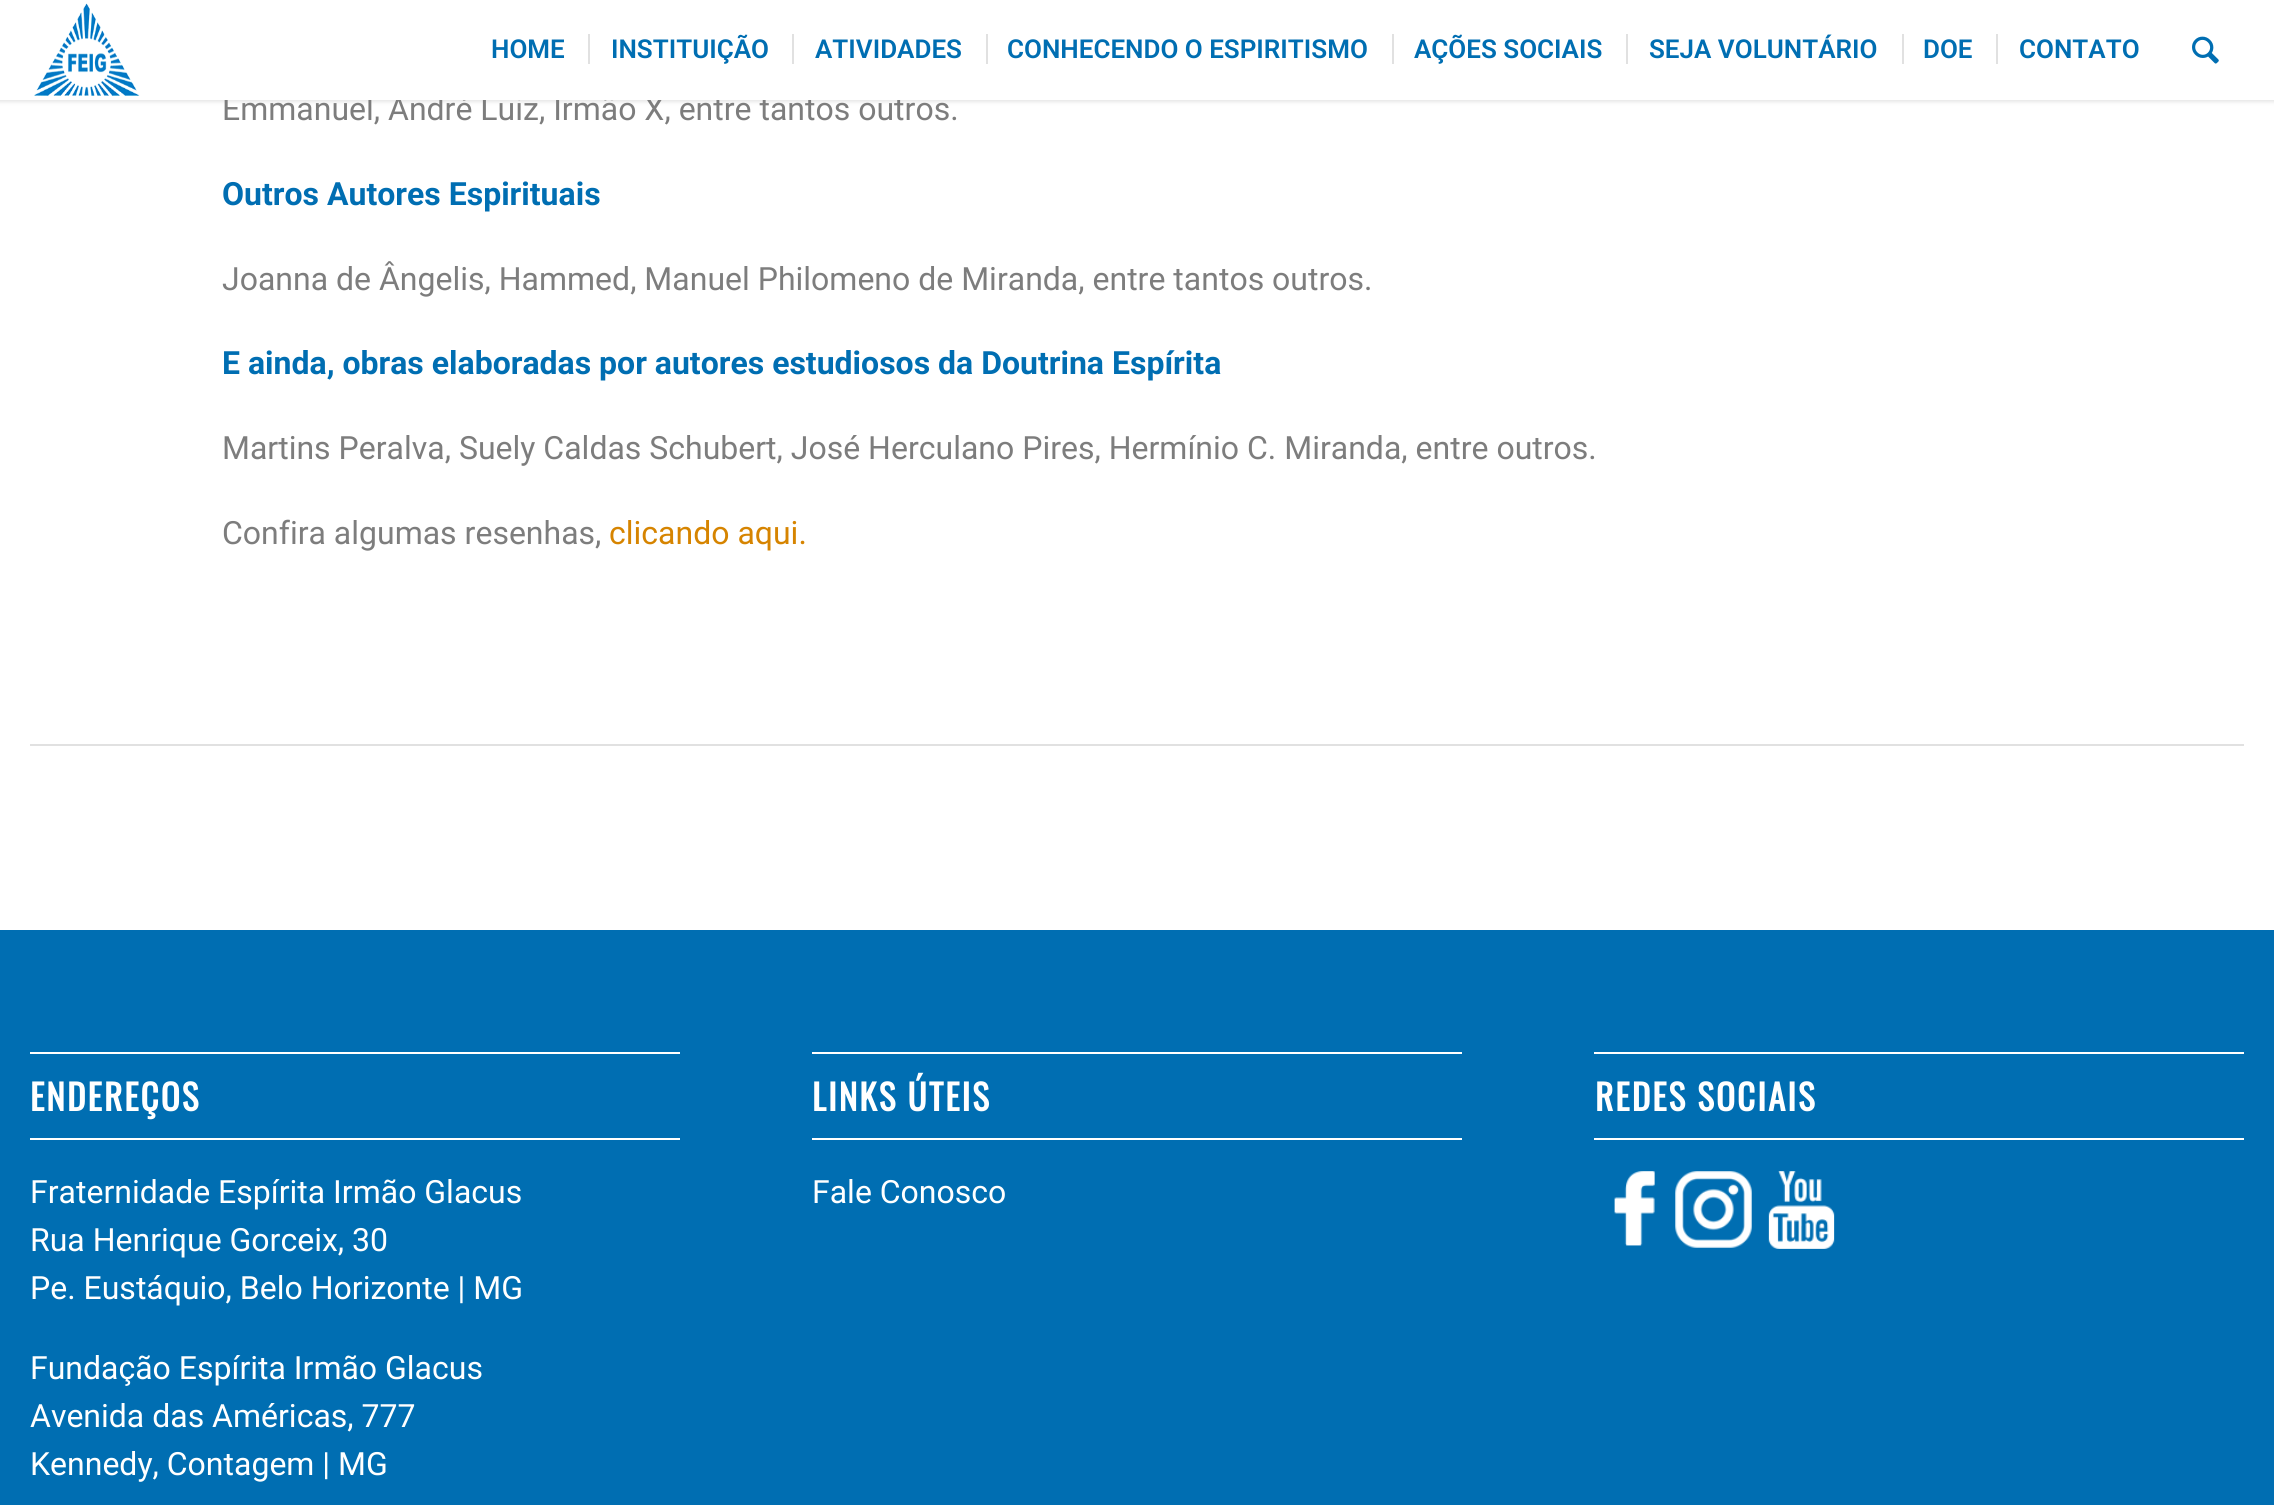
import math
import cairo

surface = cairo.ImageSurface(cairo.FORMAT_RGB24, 2274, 1505)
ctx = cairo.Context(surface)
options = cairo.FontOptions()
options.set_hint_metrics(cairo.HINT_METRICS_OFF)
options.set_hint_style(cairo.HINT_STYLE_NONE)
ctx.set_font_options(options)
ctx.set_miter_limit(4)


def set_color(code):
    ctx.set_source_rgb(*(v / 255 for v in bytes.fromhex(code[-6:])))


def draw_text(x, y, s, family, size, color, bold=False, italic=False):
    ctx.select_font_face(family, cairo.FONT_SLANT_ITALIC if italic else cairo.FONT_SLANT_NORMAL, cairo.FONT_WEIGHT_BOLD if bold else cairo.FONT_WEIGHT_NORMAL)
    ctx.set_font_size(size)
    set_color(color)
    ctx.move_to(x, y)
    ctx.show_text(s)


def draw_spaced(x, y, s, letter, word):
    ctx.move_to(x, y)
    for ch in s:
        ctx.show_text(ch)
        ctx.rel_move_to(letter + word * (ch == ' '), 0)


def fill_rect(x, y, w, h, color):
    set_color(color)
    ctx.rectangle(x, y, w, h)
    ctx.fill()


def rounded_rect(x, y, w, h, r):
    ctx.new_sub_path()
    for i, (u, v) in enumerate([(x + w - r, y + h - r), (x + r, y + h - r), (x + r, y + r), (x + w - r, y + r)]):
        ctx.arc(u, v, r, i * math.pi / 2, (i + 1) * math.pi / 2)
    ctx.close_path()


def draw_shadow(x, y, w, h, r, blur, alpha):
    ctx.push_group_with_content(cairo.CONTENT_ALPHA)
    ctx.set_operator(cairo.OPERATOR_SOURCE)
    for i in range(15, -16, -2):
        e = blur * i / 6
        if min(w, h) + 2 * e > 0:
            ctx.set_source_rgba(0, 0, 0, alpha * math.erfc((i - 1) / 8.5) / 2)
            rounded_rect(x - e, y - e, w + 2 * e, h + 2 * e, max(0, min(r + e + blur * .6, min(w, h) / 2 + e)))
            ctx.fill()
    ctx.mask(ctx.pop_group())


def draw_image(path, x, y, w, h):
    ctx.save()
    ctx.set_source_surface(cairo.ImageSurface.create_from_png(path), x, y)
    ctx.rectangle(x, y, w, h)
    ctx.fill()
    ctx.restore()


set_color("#ffffff")
ctx.paint()
set_color("#000000")
draw_shadow(-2, -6, 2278, 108, 0, 2, 0.1)
draw_text(222, 120, "Emmanuel, André Luiz, Irmão X, entre tantos outros.", "Roboto", 32, "#7d7d7d")
fill_rect(0, 0, 2274, 100, "#ffffff")
draw_image("assets/img1.png", 34, 3, 106, 93)
draw_text(491, 58, "HOME", "Roboto SemiBold", 26, "#006eb2")
draw_text(611, 58, "INSTITUIÇÃO", "Roboto SemiBold", 26, "#006eb2")
fill_rect(588, 34, 2, 30, "#e1e1e1")
draw_text(815, 58, "ATIVIDADES", "Roboto SemiBold", 26, "#006eb2")
fill_rect(792, 34, 2, 30, "#e1e1e1")
draw_text(1007, 58, "CONHECENDO O ESPIRITISMO", "Roboto SemiBold", 26, "#006eb2")
fill_rect(986, 34, 2, 30, "#e1e1e1")
draw_text(1414, 58, "AÇÕES SOCIAIS", "Roboto SemiBold", 26, "#006eb2")
fill_rect(1392, 34, 2, 30, "#e1e1e1")
draw_text(1649, 58, "SEJA VOLUNTÁRIO", "Roboto SemiBold", 26, "#006eb2")
fill_rect(1626, 34, 2, 30, "#e1e1e1")
draw_text(1923, 58, "DOE", "Roboto SemiBold", 26, "#006eb2")
fill_rect(1902, 34, 2, 30, "#e1e1e1")
draw_text(2019, 58, "CONTATO", "Roboto SemiBold", 26, "#006eb2")
fill_rect(1996, 34, 2, 30, "#e1e1e1")
draw_image("assets/img2.png", 2192, 36, 27, 28)
draw_text(222, 205, "Outros Autores Espirituais", "Roboto", 32, "#006eb2", bold=True)
draw_text(222, 290, "Joanna de Ângelis, Hammed, Manuel Philomeno de Miranda, entre tantos outros.", "Roboto", 32, "#7d7d7d")
draw_text(222, 374, "E ainda, obras elaboradas por autores estudiosos da Doutrina Espírita", "Roboto", 32, "#006eb2", bold=True)
draw_text(222, 459, "Martins Peralva, Suely Caldas Schubert, José Herculano Pires, Hermínio C. Miranda, entre outros.", "Roboto", 32, "#7d7d7d")
draw_text(222, 544, "Confira algumas resenhas,", "Roboto", 32, "#7d7d7d")
draw_text(609, 544, "clicando aqui.", "Roboto", 32, "#d68400")
fill_rect(30, 744, 2214, 2, "#e1e1e1")
fill_rect(0, 930, 2274, 575, "#006eb2")
fill_rect(30, 1052, 650, 2, "#ffffff")
fill_rect(30, 1138, 650, 2, "#ffffff")
ctx.select_font_face("Oswald", cairo.FONT_SLANT_NORMAL, cairo.FONT_WEIGHT_BOLD)
ctx.set_font_size(35.25)
draw_spaced(30, 1111, "ENDEREÇOS", 2, 0)
draw_text(30, 1203, "Fraternidade Espírita Irmão Glacus", "Roboto", 32, "#ffffff")
draw_text(30, 1251, "Rua Henrique Gorceix, 30", "Roboto", 32, "#ffffff")
draw_text(30, 1299, "Pe. Eustáquio, Belo Horizonte | MG", "Roboto", 32, "#ffffff")
draw_text(30, 1379, "Fundação Espírita Irmão Glacus", "Roboto", 32, "#ffffff")
draw_text(30, 1427, "Avenida das Américas, 777", "Roboto", 32, "#ffffff")
draw_text(30, 1475, "Kennedy, Contagem | MG", "Roboto", 32, "#ffffff")
fill_rect(812, 1052, 650, 2, "#ffffff")
fill_rect(812, 1138, 650, 2, "#ffffff")
ctx.select_font_face("Oswald", cairo.FONT_SLANT_NORMAL, cairo.FONT_WEIGHT_BOLD)
ctx.set_font_size(35.25)
draw_spaced(812, 1111, "LINKS ÚTEIS", 2, 0)
draw_text(812, 1203, "Fale Conosco", "Roboto", 32, "#ffffff")
fill_rect(1594, 1052, 650, 2, "#ffffff")
fill_rect(1594, 1138, 650, 2, "#ffffff")
ctx.select_font_face("Oswald", cairo.FONT_SLANT_NORMAL, cairo.FONT_WEIGHT_BOLD)
ctx.set_font_size(35.25)
draw_spaced(1595, 1111, "REDES SOCIAIS", 2, 0)
draw_image("assets/img3.png", 1614, 1171, 41, 75)
draw_image("assets/img4.png", 1675, 1171, 77, 77)
draw_image("assets/img5.png", 1768, 1171, 67, 78)
surface.write_to_png("output.png")
